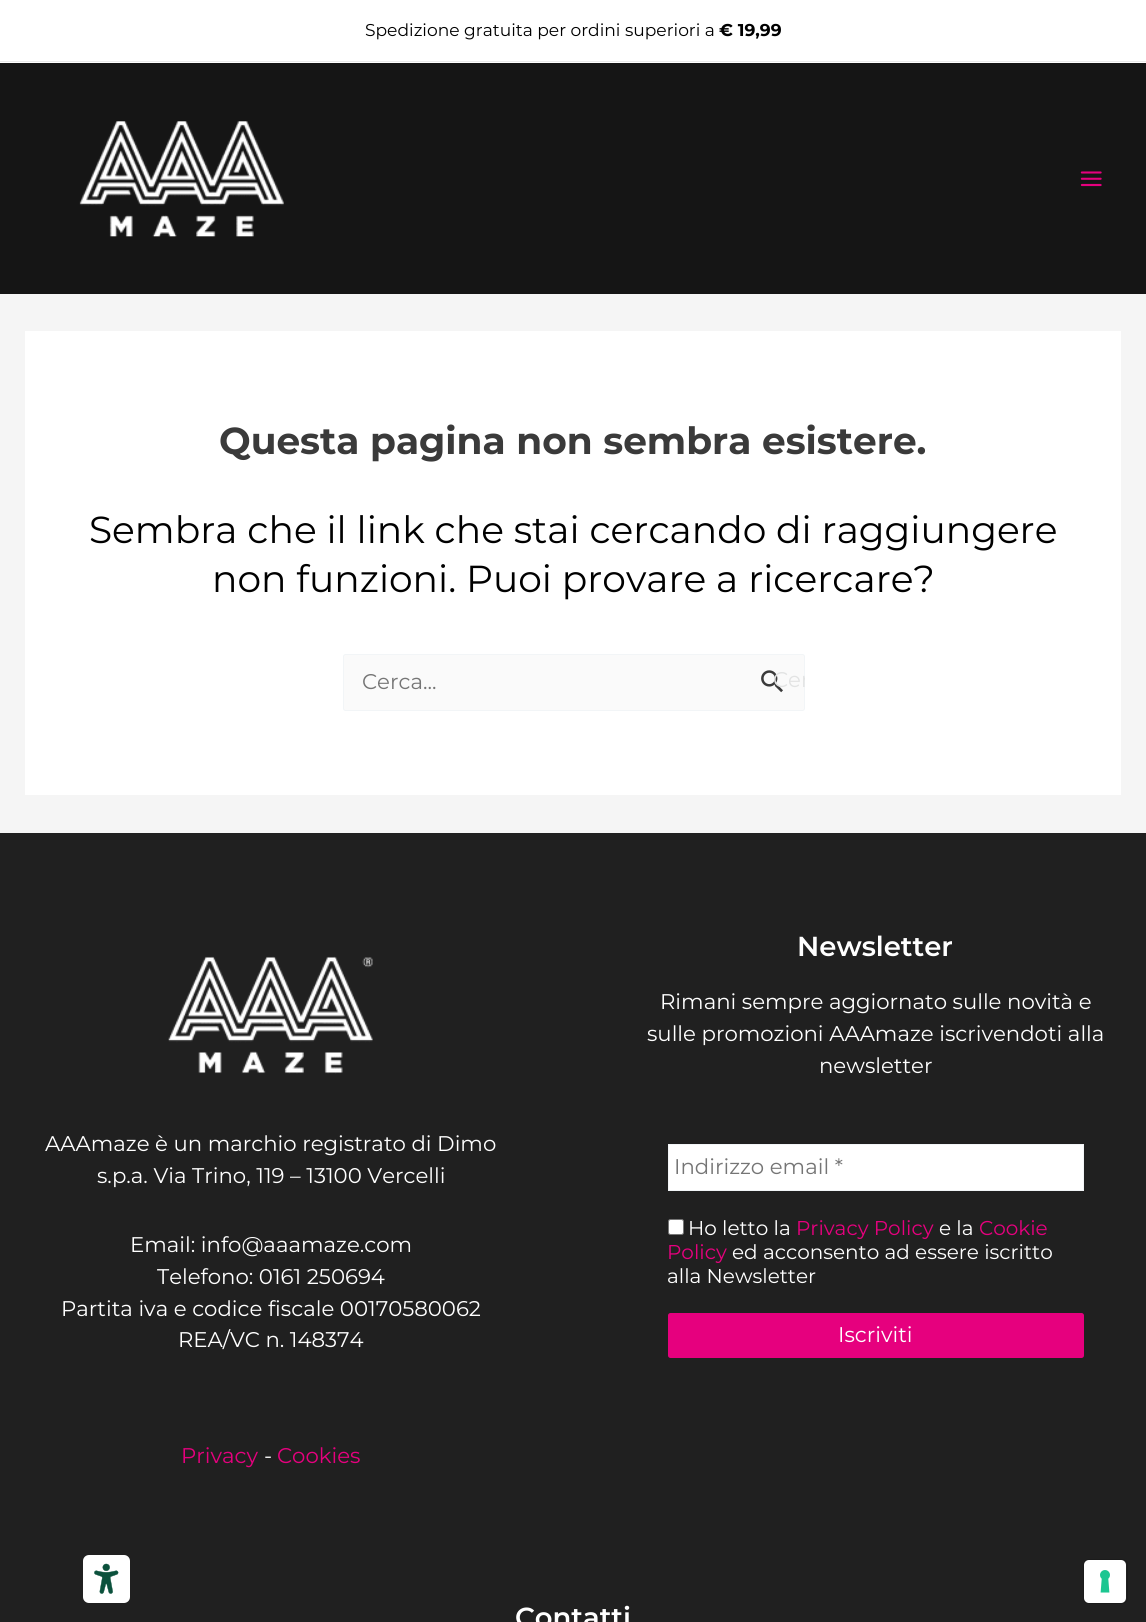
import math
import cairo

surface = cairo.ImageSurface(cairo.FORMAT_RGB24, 1146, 1622)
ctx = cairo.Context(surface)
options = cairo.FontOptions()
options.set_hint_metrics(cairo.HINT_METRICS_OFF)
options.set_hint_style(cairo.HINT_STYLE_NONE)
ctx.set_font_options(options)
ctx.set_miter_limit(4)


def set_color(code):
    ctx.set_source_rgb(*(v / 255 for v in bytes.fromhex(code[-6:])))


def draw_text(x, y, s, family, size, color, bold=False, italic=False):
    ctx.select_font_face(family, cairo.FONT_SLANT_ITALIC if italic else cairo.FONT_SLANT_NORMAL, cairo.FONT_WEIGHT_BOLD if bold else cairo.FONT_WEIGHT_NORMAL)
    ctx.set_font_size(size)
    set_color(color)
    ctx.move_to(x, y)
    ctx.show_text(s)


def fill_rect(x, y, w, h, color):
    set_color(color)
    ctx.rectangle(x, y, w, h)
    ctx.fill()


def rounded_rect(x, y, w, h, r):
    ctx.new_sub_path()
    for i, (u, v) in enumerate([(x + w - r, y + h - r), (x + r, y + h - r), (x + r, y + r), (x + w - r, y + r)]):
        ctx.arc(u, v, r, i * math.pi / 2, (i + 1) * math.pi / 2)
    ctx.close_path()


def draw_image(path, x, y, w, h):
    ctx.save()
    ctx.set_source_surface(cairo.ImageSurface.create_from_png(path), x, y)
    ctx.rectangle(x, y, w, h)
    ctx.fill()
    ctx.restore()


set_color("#f5f5f5")
ctx.paint()
fill_rect(0, 0, 1146, 63, "#ffffff")
fill_rect(0, 61, 1146, 1, "#eaeaea")
draw_text(365, 36, "Spedizione gratuita per ordini superiori a", "Montserrat", 17.1, "#000000")
draw_text(719, 36, "€ 19,99", "Montserrat", 17.1, "#000000", bold=True)
fill_rect(0, 63, 1146, 231, "#151515")
draw_image("assets/img1.png", 79, 121, 205, 116)
draw_image("assets/img2.png", 1080, 171, 22, 16)
fill_rect(25, 331, 1096, 464, "#ffffff")
draw_text(219, 454, "Questa pagina non sembra esistere.", "Montserrat", 37.5, "#3a3a3a", bold=True)
draw_text(89, 543, "Sembra che il link che stai cercando di raggiungere", "Montserrat", 37.6, "#000000")
draw_text(212, 592, "non funzioni. Puoi provare a ricercare?", "Montserrat", 37.6, "#000000")
set_color("#fafafa")
rounded_rect(343.5, 654.5, 461, 56, 2)
ctx.fill_preserve()
set_color("#f2f5f7")
ctx.set_line_width(1)
ctx.stroke()
draw_text(362, 689, "Cerca...", "Montserrat", 21.25, "#757575")
draw_image("assets/img3.png", 761, 670, 22, 23)
ctx.save()
rounded_rect(749, 654, 56, 54, 2.5)
ctx.clip()
draw_text(773, 687, "Cer", "Montserrat", 21.25, "#e2e3e3")
ctx.restore()
fill_rect(0, 833, 1146, 789, "#202020")
draw_image("assets/img4.png", 168, 956, 205, 118)
draw_text(45, 1151, "AAAmaze è un marchio registrato di Dimo", "Montserrat", 21.25, "#ffffff")
draw_text(97, 1183, "s.p.a. Via Trino, 119 – 13100 Vercelli", "Montserrat", 21.25, "#ffffff")
draw_text(130, 1252, "Email: info@aaamaze.com", "Montserrat", 21.25, "#ffffff")
draw_text(157, 1284, "Telefono: 0161 250694", "Montserrat", 21.25, "#ffffff")
draw_text(61, 1316, "Partita iva e codice fiscale 00170580062", "Montserrat", 21.25, "#ffffff")
draw_text(178, 1347, "REA/VC n. 148374", "Montserrat", 21.25, "#ffffff")
draw_text(181, 1463, "Privacy", "Montserrat", 21.25, "#e6007e")
draw_text(264, 1463, "-", "Montserrat", 21.25, "#ffffff")
draw_text(277, 1463, "Cookies", "Montserrat", 21.25, "#e6007e")
draw_text(797, 956, "Newsletter", "Montserrat SemiBold", 27.5, "#ffffff")
draw_text(660, 1009, "Rimani sempre aggiornato sulle novità e", "Montserrat", 21.25, "#ffffff")
draw_text(647, 1041, "sulle promozioni AAAmaze iscrivendoti alla", "Montserrat", 21.25, "#ffffff")
draw_text(819, 1073, "newsletter", "Montserrat", 21.25, "#ffffff")
ctx.rectangle(668.5, 1144.5, 415, 46)
ctx.fill_preserve()
set_color("#f2f5f7")
ctx.stroke()
draw_text(674, 1174, "Indirizzo email *", "Montserrat", 21.25, "#757575")
set_color("#ffffff")
rounded_rect(668.5, 1219.5, 15, 15, 2)
ctx.fill_preserve()
set_color("#767676")
ctx.stroke()
draw_text(688, 1235, "Ho letto la", "Montserrat", 20, "#ffffff")
draw_text(796, 1235, "Privacy Policy", "Montserrat", 20, "#e6007e")
draw_text(939, 1235, "e la", "Montserrat", 20, "#ffffff")
draw_text(979, 1235, "Cookie", "Montserrat", 20, "#e6007e")
draw_text(667, 1259, "Policy", "Montserrat", 20, "#e6007e")
draw_text(732, 1259, "ed acconsento ad essere iscritto", "Montserrat", 20, "#ffffff")
draw_text(667, 1283, "alla Newsletter", "Montserrat", 20, "#ffffff")
set_color("#e6007e")
rounded_rect(668, 1313, 416, 45, 2.5)
ctx.fill()
draw_text(838, 1342, "Iscriviti", "Montserrat", 21.25, "#ffffff")
draw_text(515, 1627, "Contatti", "Montserrat SemiBold", 27.5, "#ffffff")
rounded_rect(83, 1555, 47, 48, 6)
ctx.fill()
draw_image("assets/img5.png", 94, 1563, 25, 31)
rounded_rect(1083.5, 1559.5, 44, 44, 5.5)
set_color("#1b1b1b")
ctx.stroke()
set_color("#ffffff")
rounded_rect(1084, 1560, 42, 43, 5)
ctx.fill()
draw_image("assets/img6.png", 1100, 1570, 10, 23)
surface.write_to_png("output.png")
